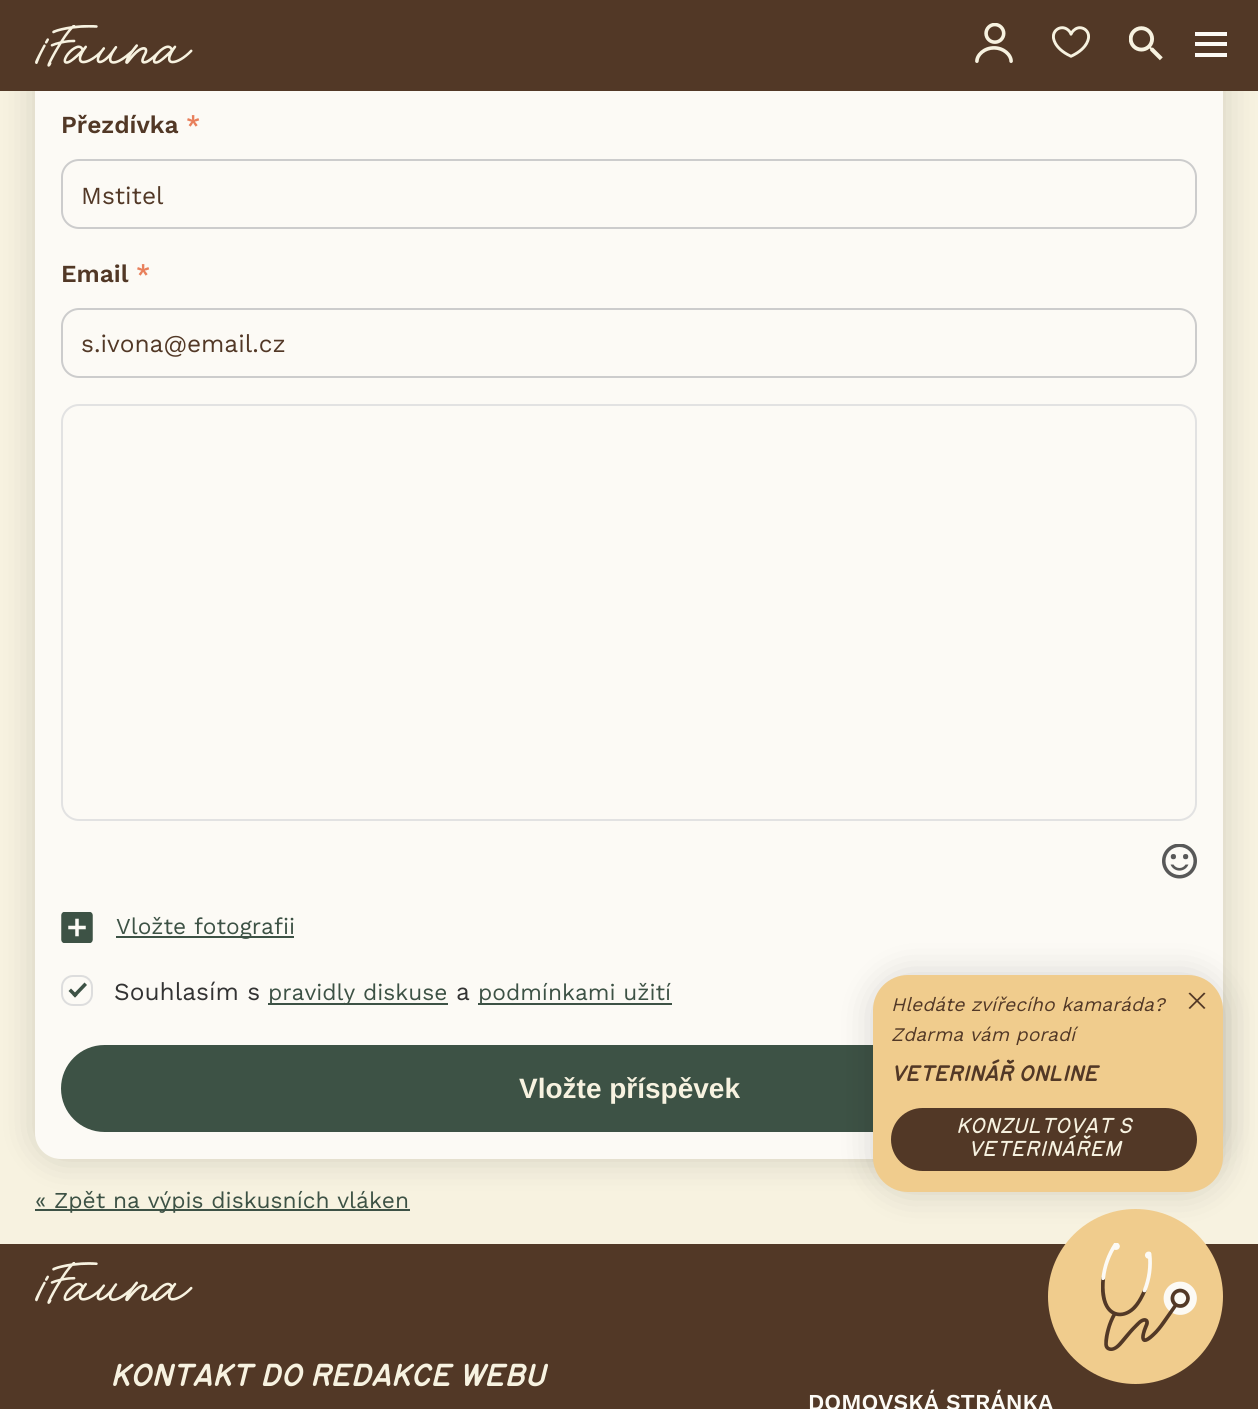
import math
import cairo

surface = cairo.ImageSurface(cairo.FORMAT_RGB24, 1258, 1409)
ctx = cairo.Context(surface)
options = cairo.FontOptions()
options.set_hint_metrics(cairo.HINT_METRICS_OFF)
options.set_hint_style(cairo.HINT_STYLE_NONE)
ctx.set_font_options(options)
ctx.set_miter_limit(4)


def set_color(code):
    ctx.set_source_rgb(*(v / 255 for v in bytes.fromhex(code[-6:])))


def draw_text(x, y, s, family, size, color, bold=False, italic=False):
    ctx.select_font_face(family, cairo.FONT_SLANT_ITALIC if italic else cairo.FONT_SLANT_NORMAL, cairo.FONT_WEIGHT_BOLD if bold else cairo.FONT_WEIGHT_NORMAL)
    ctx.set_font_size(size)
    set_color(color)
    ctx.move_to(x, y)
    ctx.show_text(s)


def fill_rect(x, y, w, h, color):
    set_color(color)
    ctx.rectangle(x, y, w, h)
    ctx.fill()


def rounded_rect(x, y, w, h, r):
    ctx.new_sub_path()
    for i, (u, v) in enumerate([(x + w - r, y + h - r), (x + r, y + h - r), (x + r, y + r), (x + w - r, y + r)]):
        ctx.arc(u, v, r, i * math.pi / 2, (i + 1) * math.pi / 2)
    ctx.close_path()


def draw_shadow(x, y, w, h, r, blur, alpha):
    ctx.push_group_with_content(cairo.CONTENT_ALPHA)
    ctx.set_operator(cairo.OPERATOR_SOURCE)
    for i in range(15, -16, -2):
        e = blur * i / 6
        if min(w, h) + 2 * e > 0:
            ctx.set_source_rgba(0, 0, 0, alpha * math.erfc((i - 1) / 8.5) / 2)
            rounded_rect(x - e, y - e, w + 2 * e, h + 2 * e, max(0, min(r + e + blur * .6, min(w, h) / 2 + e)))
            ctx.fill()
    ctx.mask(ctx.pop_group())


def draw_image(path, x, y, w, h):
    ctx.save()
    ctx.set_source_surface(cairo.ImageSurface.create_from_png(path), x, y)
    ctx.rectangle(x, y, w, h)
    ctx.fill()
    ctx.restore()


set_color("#f7f2e0")
ctx.paint()
fill_rect(35, 1209, 375, 2, "#3d5245")
set_color("#000000")
draw_shadow(35, 2, 1188, 1157, 26, 17.5, 0.15)
set_color("#fcfaf5")
rounded_rect(35, 2, 1188, 1157, 26)
ctx.fill()
fill_rect(0, 0, 1258, 91, "#523826")
draw_image("assets/img1.png", 35, 25, 158, 42)
draw_image("assets/img2.png", 975, 23, 38, 40)
draw_image("assets/img3.png", 1052, 26, 38, 32)
draw_image("assets/img4.png", 1129, 26, 34, 35)
fill_rect(1195, 32, 32, 4, "#fcfaf5")
fill_rect(1195, 42, 32, 4, "#fcfaf5")
fill_rect(1195, 53, 32, 4, "#fcfaf5")
draw_text(61, 133, "Přezdívka", "Work Sans SemiBold", 24.5, "#523826")
draw_text(186, 133, "*", "Work Sans SemiBold", 24.5, "#e8805c")
rounded_rect(62, 160, 1134, 68, 17)
set_color("#cccccc")
ctx.stroke()
draw_text(81, 204, "Mstitel", "Work Sans", 24.5, "#523826")
draw_text(61, 282, "Email", "Work Sans SemiBold", 24.5, "#523826")
draw_text(136, 282, "*", "Work Sans SemiBold", 24.5, "#e8805c")
rounded_rect(62, 309, 1134, 68, 17)
set_color("#cccccc")
ctx.stroke()
draw_text(81, 352, "s.ivona@email.cz", "Work Sans", 24.5, "#523826")
rounded_rect(62, 405, 1134, 415, 17)
set_color("#e2e2e2")
ctx.stroke()
draw_image("assets/img5.png", 1162, 844, 35, 35)
draw_image("assets/img6.png", 61, 912, 32, 31)
fill_rect(116, 936, 178, 2, "#3d5245")
draw_text(116, 934, "Vložte fotografii", "Work Sans", 22.75, "#3d5245")
rounded_rect(62, 976, 30, 29, 11)
set_color("#dddddd")
ctx.stroke()
draw_text(114, 1000, "Souhlasím s", "Work Sans", 24.5, "#333333")
set_color("#3d5245")
ctx.new_path()
ctx.move_to(84.5, 982.5)
ctx.line_to(87, 985)
ctx.line_to(75, 997.5)
ctx.line_to(72.5, 995)
ctx.close_path()
ctx.fill()
ctx.new_path()
ctx.move_to(71, 988.5)
ctx.line_to(77.5, 995)
ctx.line_to(75, 997.5)
ctx.line_to(68.5, 991)
ctx.close_path()
ctx.fill()
fill_rect(268, 1003, 180, 2, "#3d5245")
draw_text(268, 1000, "pravidly diskuse", "Work Sans", 22.75, "#3d5245")
draw_text(456, 1000, "a", "Work Sans", 24.5, "#333333")
fill_rect(478, 1003, 194, 2, "#3d5245")
draw_text(478, 1000, "podmínkami užití", "Work Sans", 22.75, "#3d5245")
rounded_rect(63, 1047, 1132, 83, 41.5)
ctx.fill_preserve()
ctx.set_line_width(4)
ctx.stroke()
draw_text(519, 1098, "Vložte příspěvek", "Liberation Sans", 28, "#f7f2e0", bold=True)
draw_text(35, 1208, "« Zpět na výpis diskusních vláken", "Work Sans", 22.75, "#3d5245")
fill_rect(0, 1244, 1258, 165, "#523826")
set_color("#000000")
draw_shadow(873, 975, 350, 217, 35, 17.5, 0.15)
set_color("#f0cc8d")
rounded_rect(873, 975, 350, 217, 35)
ctx.fill()
draw_text(891, 1011, "Hledáte zvířecího kamaráda?", "Work Sans", 19.25, "#523826", italic=True)
draw_text(891, 1041, "Zdarma vám poradí", "Work Sans", 19.25, "#523826", italic=True)
draw_text(891, 1081, "VETERINÁŘ ONLINE", "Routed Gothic", 21, "#523826", bold=True, italic=True)
rounded_rect(891, 1108, 306, 63, 31.5)
ctx.fill()
draw_text(956, 1133, "KONZULTOVAT S", "Routed Gothic", 21, "#f7f2e0", italic=True)
draw_text(968, 1156, "VETERINÁŘEM", "Routed Gothic", 21, "#f7f2e0", italic=True)
set_color("#523826")
ctx.new_path()
ctx.move_to(1190, 992.5)
ctx.line_to(1205.5, 1008)
ctx.line_to(1204, 1009)
ctx.line_to(1188.5, 993.5)
ctx.close_path()
ctx.fill()
ctx.new_path()
ctx.move_to(1188.5, 1008)
ctx.line_to(1204, 992.5)
ctx.line_to(1205.5, 993.5)
ctx.line_to(1190, 1009)
ctx.close_path()
ctx.fill()
set_color("#f0cc8d")
ctx.arc(1135.5, 1296.5, 87.5, 0, 2 * math.pi)
ctx.fill()
draw_image("assets/img7.png", 1101, 1243, 96, 108)
draw_image("assets/img8.png", 35, 1262, 158, 42)
draw_text(110, 1386, "KONTAKT DO REDAKCE WEBU", "Routed Gothic", 29.75, "#f7f2e0", bold=True, italic=True)
draw_text(808, 1410, "DOMOVSKÁ STRÁNKA", "Work Sans SemiBold", 22.75, "#fcfaf5")
surface.write_to_png("output.png")
